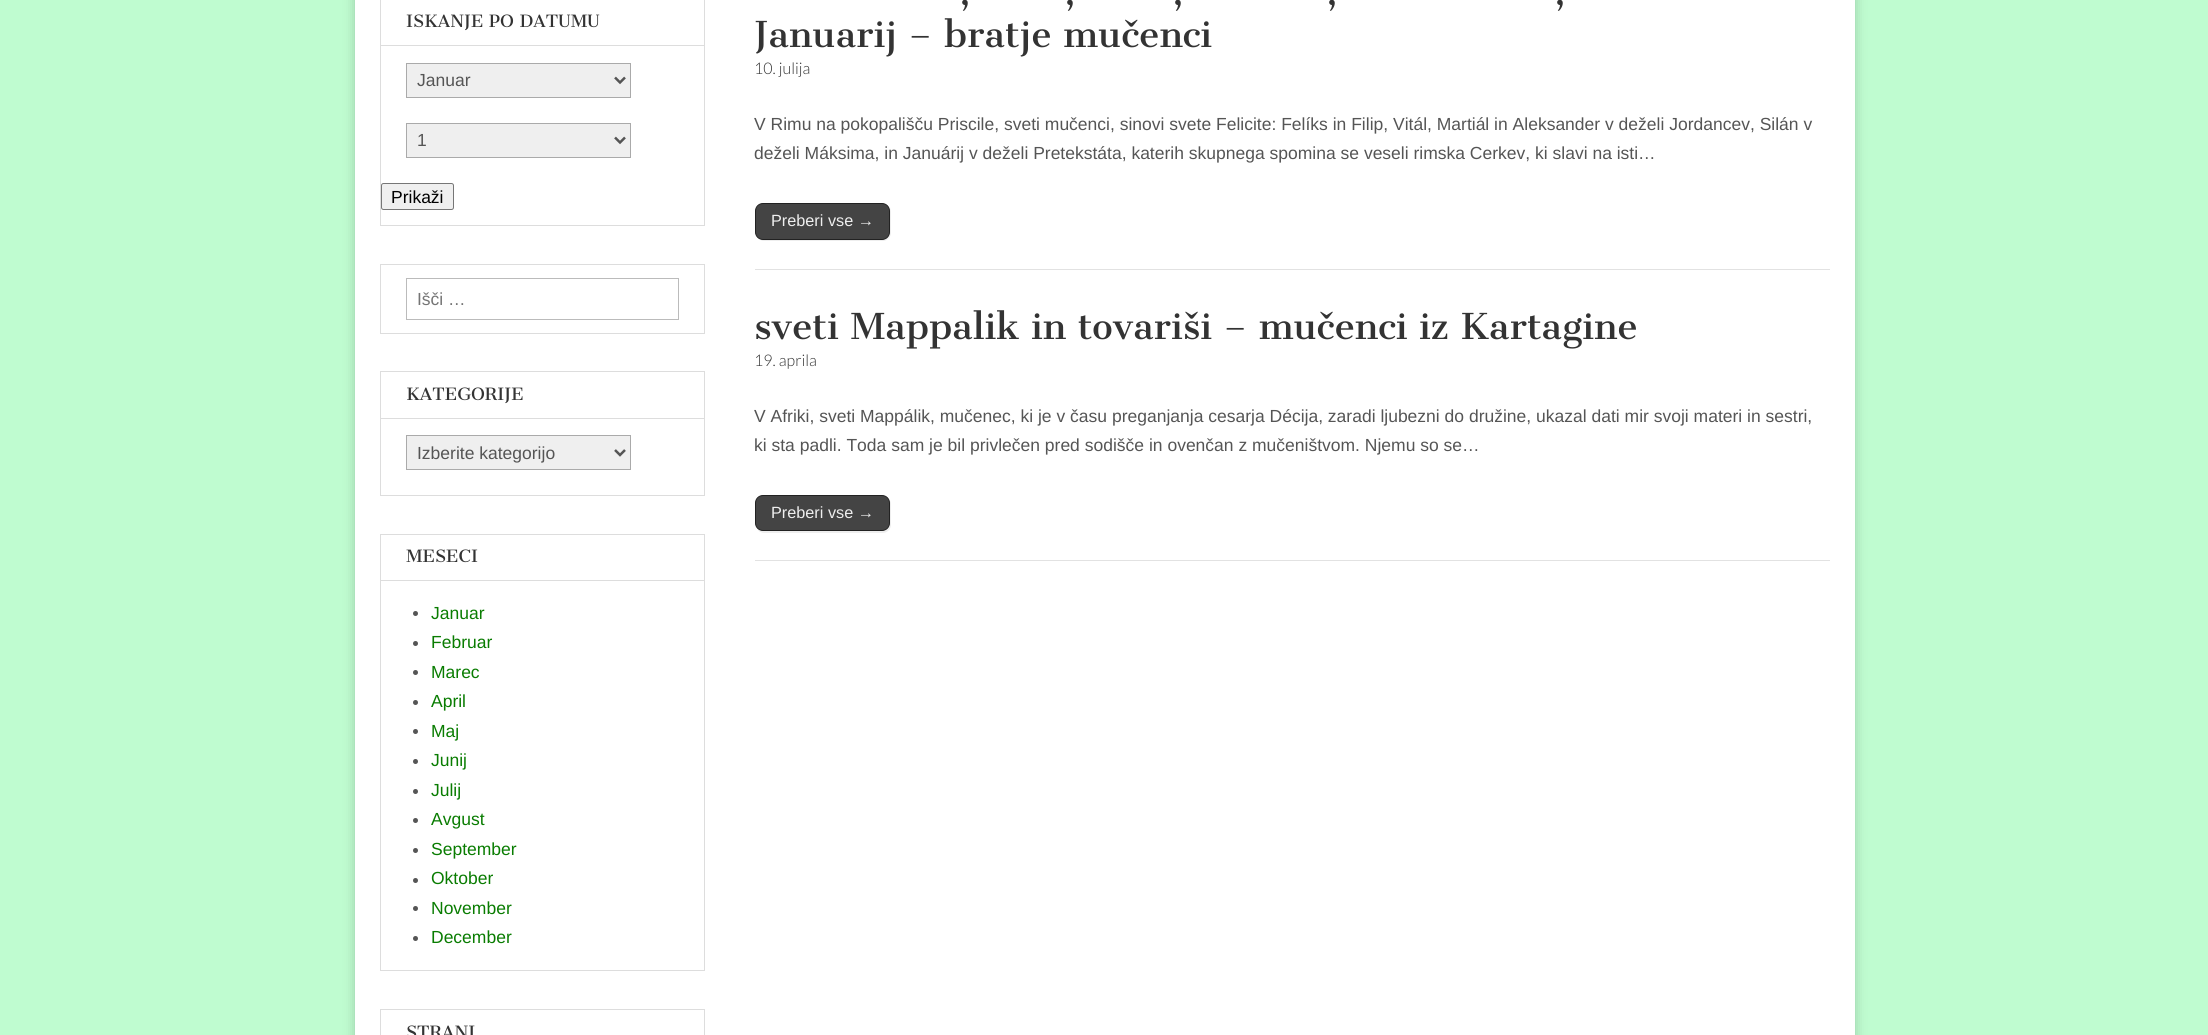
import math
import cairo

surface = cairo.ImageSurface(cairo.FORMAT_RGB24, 2208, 1035)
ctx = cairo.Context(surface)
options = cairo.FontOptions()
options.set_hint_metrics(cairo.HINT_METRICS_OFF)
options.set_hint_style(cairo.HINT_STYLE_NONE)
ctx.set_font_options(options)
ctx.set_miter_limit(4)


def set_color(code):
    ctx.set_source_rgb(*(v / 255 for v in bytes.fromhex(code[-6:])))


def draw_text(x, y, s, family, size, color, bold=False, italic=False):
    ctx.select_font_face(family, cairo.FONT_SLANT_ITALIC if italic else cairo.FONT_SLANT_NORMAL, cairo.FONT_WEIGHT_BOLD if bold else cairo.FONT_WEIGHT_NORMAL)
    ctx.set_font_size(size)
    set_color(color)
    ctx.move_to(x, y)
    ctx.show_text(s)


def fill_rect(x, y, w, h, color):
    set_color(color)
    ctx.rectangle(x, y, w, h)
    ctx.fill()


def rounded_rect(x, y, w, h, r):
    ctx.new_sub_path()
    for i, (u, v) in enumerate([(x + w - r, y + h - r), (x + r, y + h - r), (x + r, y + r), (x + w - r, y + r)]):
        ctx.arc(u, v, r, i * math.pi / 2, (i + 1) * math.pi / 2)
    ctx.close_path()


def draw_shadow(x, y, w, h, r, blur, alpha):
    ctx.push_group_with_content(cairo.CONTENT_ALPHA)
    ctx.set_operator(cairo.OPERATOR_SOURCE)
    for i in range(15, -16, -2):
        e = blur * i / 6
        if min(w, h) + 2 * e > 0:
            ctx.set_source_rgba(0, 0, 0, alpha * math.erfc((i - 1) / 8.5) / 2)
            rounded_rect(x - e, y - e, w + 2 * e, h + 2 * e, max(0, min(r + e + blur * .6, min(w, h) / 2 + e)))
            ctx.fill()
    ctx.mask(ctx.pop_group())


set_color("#bffcd0")
ctx.paint()
set_color("#000000")
draw_shadow(355, -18, 1500, 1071, 0, 6, 0.2)
fill_rect(355, 0, 1500, 1035, "#ffffff")
ctx.rectangle(380.5, -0.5, 324, 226)
set_color("#dddddd")
ctx.set_line_width(1)
ctx.stroke()
fill_rect(381, 45, 323, 1, "#dddddd")
draw_text(406, 27, "ISKANJE PO DATUMU", "Cantata One", 16.6, "#333333")
set_color("#efefef")
ctx.rectangle(406.5, 63.5, 224, 34)
ctx.fill_preserve()
set_color("#aaaaaa")
ctx.stroke()
ctx.new_path()
ctx.move_to(615, 77.5)
ctx.line_to(620, 82.5)
ctx.line_to(625, 77.5)
set_color("#555555")
ctx.set_line_width(2.5)
ctx.stroke()
draw_text(417, 86, "Januar", "Liberation Sans", 17.5, "#555555")
set_color("#efefef")
ctx.rectangle(406.5, 123.5, 224, 34)
ctx.fill_preserve()
set_color("#aaaaaa")
ctx.set_line_width(1)
ctx.stroke()
ctx.new_path()
ctx.move_to(615, 137.5)
ctx.line_to(620, 142.5)
ctx.line_to(625, 137.5)
set_color("#555555")
ctx.set_line_width(2.5)
ctx.stroke()
draw_text(417, 146, "1", "Liberation Sans", 17.5, "#555555")
set_color("#efefef")
rounded_rect(381.5, 183.5, 72, 26, 2)
ctx.fill_preserve()
set_color("#767676")
ctx.set_line_width(1)
ctx.stroke()
draw_text(391, 203, "Prikaži", "Liberation Sans", 17.5, "#000000")
ctx.rectangle(380.5, 264.5, 324, 69)
set_color("#dddddd")
ctx.stroke()
ctx.rectangle(406.5, 278.5, 272, 41)
set_color("#bbbbbb")
ctx.stroke()
draw_text(417, 305, "Išči …", "Liberation Sans", 17.5, "#757575")
ctx.rectangle(380.5, 371.5, 324, 124)
set_color("#dddddd")
ctx.stroke()
fill_rect(381, 418, 323, 1, "#dddddd")
draw_text(406, 400, "KATEGORIJE", "Cantata One", 16.6, "#333333")
set_color("#efefef")
ctx.rectangle(406.5, 435.5, 224, 34)
ctx.fill_preserve()
set_color("#aaaaaa")
ctx.stroke()
ctx.new_path()
ctx.move_to(615, 450)
ctx.line_to(620, 455)
ctx.line_to(625, 450)
set_color("#555555")
ctx.set_line_width(2.5)
ctx.stroke()
draw_text(417, 459, "Izberite kategorijo", "Liberation Sans", 17.5, "#555555")
ctx.rectangle(380.5, 534.5, 324, 436)
set_color("#dddddd")
ctx.set_line_width(1)
ctx.stroke()
fill_rect(381, 580, 323, 1, "#dddddd")
draw_text(406, 562, "MESECI", "Cantata One", 16.6, "#333333")
set_color("#555555")
ctx.new_path()
ctx.arc(415.5, 613.5, 2.5, 0, 2 * math.pi)
ctx.fill()
draw_text(431, 619, "Januar", "Liberation Sans", 17.5, "#097c01")
set_color("#555555")
ctx.new_path()
ctx.arc(415.5, 643.5, 2.5, 0, 2 * math.pi)
ctx.fill()
draw_text(431, 648, "Februar", "Liberation Sans", 17.5, "#097c01")
set_color("#555555")
ctx.new_path()
ctx.arc(415.5, 672.5, 2.5, 0, 2 * math.pi)
ctx.fill()
draw_text(431, 678, "Marec", "Liberation Sans", 17.5, "#097c01")
set_color("#555555")
ctx.new_path()
ctx.arc(415.5, 702.5, 2.5, 0, 2 * math.pi)
ctx.fill()
draw_text(431, 707, "April", "Liberation Sans", 17.5, "#097c01")
set_color("#555555")
ctx.new_path()
ctx.arc(415.5, 731.5, 2.5, 0, 2 * math.pi)
ctx.fill()
draw_text(431, 737, "Maj", "Liberation Sans", 17.5, "#097c01")
set_color("#555555")
ctx.new_path()
ctx.arc(415.5, 761.5, 2.5, 0, 2 * math.pi)
ctx.fill()
draw_text(431, 766, "Junij", "Liberation Sans", 17.5, "#097c01")
set_color("#555555")
ctx.new_path()
ctx.arc(415.5, 791.5, 2.5, 0, 2 * math.pi)
ctx.fill()
draw_text(431, 796, "Julij", "Liberation Sans", 17.5, "#097c01")
set_color("#555555")
ctx.new_path()
ctx.arc(415.5, 820.5, 2.5, 0, 2 * math.pi)
ctx.fill()
draw_text(431, 825, "Avgust", "Liberation Sans", 17.5, "#097c01")
set_color("#555555")
ctx.new_path()
ctx.arc(415.5, 850.5, 2.5, 0, 2 * math.pi)
ctx.fill()
draw_text(431, 855, "September", "Liberation Sans", 17.5, "#097c01")
set_color("#555555")
ctx.new_path()
ctx.arc(415.5, 880.5, 2.5, 0, 2 * math.pi)
ctx.fill()
draw_text(431, 884, "Oktober", "Liberation Sans", 17.5, "#097c01")
set_color("#555555")
ctx.new_path()
ctx.arc(415.5, 908.5, 2.5, 0, 2 * math.pi)
ctx.fill()
draw_text(431, 914, "November", "Liberation Sans", 17.5, "#097c01")
set_color("#555555")
ctx.new_path()
ctx.arc(415.5, 938.5, 2.5, 0, 2 * math.pi)
ctx.fill()
draw_text(431, 943, "December", "Liberation Sans", 17.5, "#097c01")
ctx.rectangle(380.5, 1009.5, 324, 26)
set_color("#dddddd")
ctx.stroke()
draw_text(406, 1038, "STRANI", "Cantata One", 16.6, "#333333")
draw_text(959, 5, ",", "Cantata One", 35, "#333333")
draw_text(1064, 5, ",", "Cantata One", 35, "#333333")
draw_text(1172, 5, ",", "Cantata One", 35, "#333333")
draw_text(1326, 5, ",", "Cantata One", 35, "#333333")
draw_text(1554, 5, ",", "Cantata One", 35, "#333333")
draw_text(754, 47, "Januarĳ – bratje mučenci", "Cantata One", 35, "#333333")
draw_text(754, 74, "10. julija", "Lato Light", 16, "#333333")
fill_rect(755, 269, 1075, 1, "#e2e2e2")
draw_text(754, 130, "V Rimu na pokopališču Priscile, sveti mučenci, sinovi svete Felicite: Felíks in Filip, Vitál, Martiál in Aleksander v deželi Jordancev, Silán v", "Liberation Sans", 17.5, "#555555")
draw_text(754, 159, "deželi Máksima, in Januárĳ v deželi Pretekstáta, katerih skupnega spomina se veseli rimska Cerkev, ki slavi na isti…", "Liberation Sans", 17.5, "#555555")
set_color("#eeeeee")
ctx.new_path()
ctx.move_to(759, 239)
ctx.curve_to(760, 240, 762, 241, 764, 241)
ctx.line_to(883, 241)
ctx.curve_to(887, 241, 891, 237, 891, 233)
ctx.line_to(891, 212)
ctx.curve_to(891, 210, 890, 209, 890, 207)
ctx.line_to(890, 210)
ctx.line_to(890, 232)
ctx.curve_to(890, 237, 887, 240, 882, 240)
ctx.line_to(762, 240)
ctx.curve_to(761, 240, 760, 240, 759, 239)
ctx.close_path()
ctx.fill()
set_color("#444444")
rounded_rect(755.5, 203.5, 134, 36, 7.5)
ctx.fill_preserve()
set_color("#222222")
ctx.stroke()
draw_text(771, 226, "Preberi vse →", "Liberation Sans", 16.25, "#eeeeee")
draw_text(754, 339, "sveti Mappalik in tovariši – mučenci iz Kartagine", "Cantata One", 35, "#333333")
draw_text(754, 366, "19. aprila", "Lato Light", 16, "#333333")
fill_rect(755, 560, 1075, 1, "#e2e2e2")
draw_text(754, 422, "V Afriki, sveti Mappálik, mučenec, ki je v času preganjanja cesarja Décĳa, zaradi ljubezni do družine, ukazal dati mir svoji materi in sestri,", "Liberation Sans", 17.5, "#555555")
draw_text(754, 451, "ki sta padli. Toda sam je bil privlečen pred sodišče in ovenčan z mučeništvom. Njemu so se…", "Liberation Sans", 17.5, "#555555")
set_color("#eeeeee")
ctx.new_path()
ctx.move_to(757, 529)
ctx.curve_to(758, 531, 761, 533, 764, 533)
ctx.line_to(883, 533)
ctx.curve_to(887, 533, 891, 529, 891, 525)
ctx.line_to(891, 504)
ctx.curve_to(891, 502, 890, 500, 889, 499)
ctx.curve_to(890, 500, 890, 501, 890, 502)
ctx.line_to(890, 524)
ctx.curve_to(890, 528, 887, 531, 882, 531)
ctx.line_to(762, 531)
ctx.curve_to(760, 531, 758, 530, 757, 529)
ctx.close_path()
ctx.fill()
set_color("#444444")
rounded_rect(755.5, 495.5, 134, 35, 7.5)
ctx.fill_preserve()
set_color("#222222")
ctx.stroke()
draw_text(771, 518, "Preberi vse →", "Liberation Sans", 16.25, "#eeeeee")
surface.write_to_png("output.png")
